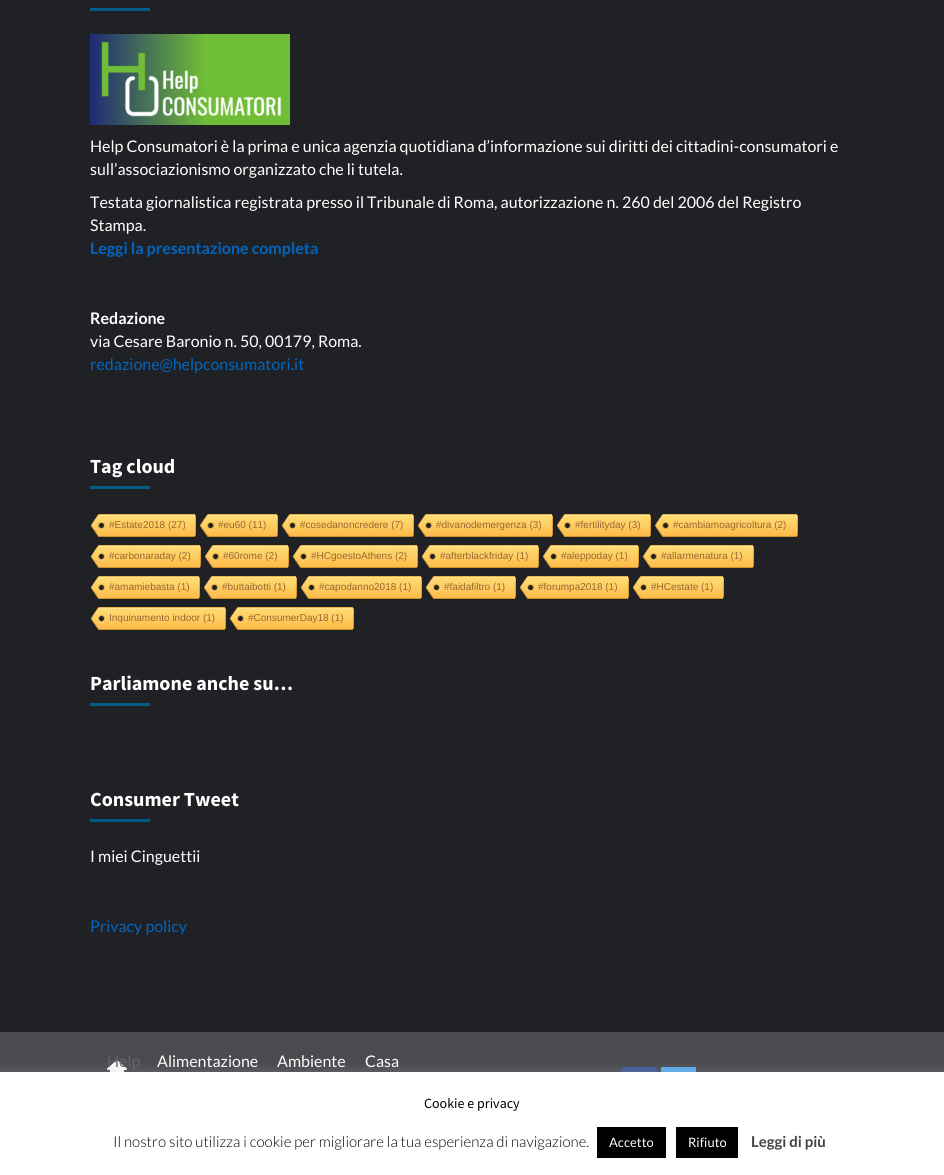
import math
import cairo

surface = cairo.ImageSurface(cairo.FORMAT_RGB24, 944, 1175)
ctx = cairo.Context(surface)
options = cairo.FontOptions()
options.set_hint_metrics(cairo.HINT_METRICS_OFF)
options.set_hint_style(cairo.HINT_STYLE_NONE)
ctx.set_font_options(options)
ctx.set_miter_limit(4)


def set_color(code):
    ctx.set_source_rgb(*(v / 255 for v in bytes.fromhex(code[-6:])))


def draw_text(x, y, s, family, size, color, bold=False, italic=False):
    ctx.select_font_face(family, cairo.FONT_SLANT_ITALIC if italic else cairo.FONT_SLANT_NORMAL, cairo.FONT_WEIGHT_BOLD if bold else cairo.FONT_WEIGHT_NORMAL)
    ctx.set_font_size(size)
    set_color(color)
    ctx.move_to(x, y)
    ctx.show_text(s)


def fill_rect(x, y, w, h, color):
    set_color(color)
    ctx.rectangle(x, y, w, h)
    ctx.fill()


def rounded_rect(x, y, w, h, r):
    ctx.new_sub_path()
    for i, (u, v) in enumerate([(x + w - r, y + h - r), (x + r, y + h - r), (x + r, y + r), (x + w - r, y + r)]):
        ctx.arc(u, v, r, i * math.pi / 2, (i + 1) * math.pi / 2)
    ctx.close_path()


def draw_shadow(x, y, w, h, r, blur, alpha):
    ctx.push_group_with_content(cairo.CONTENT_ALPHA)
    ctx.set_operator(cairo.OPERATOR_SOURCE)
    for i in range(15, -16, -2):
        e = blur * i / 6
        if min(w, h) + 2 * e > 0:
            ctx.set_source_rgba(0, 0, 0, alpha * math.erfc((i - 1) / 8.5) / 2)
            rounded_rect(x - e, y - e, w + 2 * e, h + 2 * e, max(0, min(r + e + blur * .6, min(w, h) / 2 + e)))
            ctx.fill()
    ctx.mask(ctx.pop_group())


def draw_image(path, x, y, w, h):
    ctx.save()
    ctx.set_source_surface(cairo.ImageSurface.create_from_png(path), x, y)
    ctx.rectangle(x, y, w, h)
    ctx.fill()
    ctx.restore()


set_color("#1f2125")
ctx.paint()
fill_rect(90, 8, 60, 3, "#005c84")
draw_image("assets/img1.png", 90, 34, 200, 91)
draw_text(90, 152, "Help Consumatori è la prima e unica agenzia quotidiana d’informazione sui diritti dei cittadini-consumatori e", "Lato", 16, "#ffffff")
draw_text(90, 175, "sull’associazionismo organizzato che li tutela.", "Lato", 16, "#ffffff")
draw_text(90, 208, "Testata giornalistica registrata presso il Tribunale di Roma, autorizzazione n. 260 del 2006 del Registro", "Lato", 16, "#ffffff")
draw_text(90, 231, "Stampa.", "Lato", 16, "#ffffff")
draw_text(90, 254, "Leggi la presentazione completa", "Lato", 16, "#0166bf", bold=True)
draw_text(90, 324, "Redazione", "Lato", 16, "#ffffff", bold=True)
draw_text(90, 347, "via Cesare Baronio n. 50, 00179, Roma.", "Lato", 16, "#ffffff")
draw_text(90, 370, "redazione@helpconsumatori.it", "Lato", 16, "#0166bf")
draw_text(90, 473, "Tag cloud", "Source Sans Pro", 20, "#ffffff", bold=True)
fill_rect(90, 486, 60, 3, "#005c84")
draw_image("assets/img2.png", 91, 514, 104, 24)
draw_text(109, 528, "#Estate2018 (27)", "Liberation Sans", 10, "#996633")
draw_image("assets/img3.png", 195, 515, 1, 22)
draw_image("assets/img4.png", 200, 514, 77, 24)
draw_text(218, 528, "#eu60 (11)", "Liberation Sans", 10, "#996633")
draw_image("assets/img3.png", 277, 515, 1, 22)
draw_image("assets/img5.png", 282, 514, 131, 24)
draw_text(300, 528, "#cosedanoncredere (7)", "Liberation Sans", 10, "#996633")
draw_image("assets/img3.png", 413, 515, 1, 22)
draw_image("assets/img6.png", 418, 514, 134, 24)
draw_text(436, 528, "#divanodemergenza (3)", "Liberation Sans", 10, "#996633")
draw_image("assets/img3.png", 552, 515, 1, 22)
draw_image("assets/img7.png", 557, 514, 93, 24)
draw_text(575, 528, "#fertilityday (3)", "Liberation Sans", 10, "#996633")
draw_image("assets/img3.png", 650, 515, 1, 22)
draw_image("assets/img8.png", 655, 514, 142, 24)
draw_text(673, 528, "#cambiamoagricoltura (2)", "Liberation Sans", 10, "#996633")
draw_image("assets/img3.png", 797, 515, 1, 22)
draw_image("assets/img9.png", 91, 545, 109, 24)
draw_text(109, 559, "#carbonaraday (2)", "Liberation Sans", 10, "#996633")
draw_image("assets/img3.png", 200, 546, 1, 22)
draw_image("assets/img10.png", 205, 545, 83, 24)
draw_text(223, 559, "#60rome (2)", "Liberation Sans", 10, "#996633")
draw_image("assets/img3.png", 288, 546, 1, 22)
draw_image("assets/img11.png", 293, 545, 124, 24)
draw_text(311, 559, "#HCgoestoAthens (2)", "Liberation Sans", 10, "#996633")
draw_image("assets/img3.png", 417, 546, 1, 22)
draw_image("assets/img12.png", 422, 545, 116, 24)
draw_text(440, 559, "#afterblackfriday (1)", "Liberation Sans", 10, "#996633")
draw_image("assets/img3.png", 538, 546, 1, 22)
draw_image("assets/img13.png", 543, 545, 95, 24)
draw_text(561, 559, "#aleppoday (1)", "Liberation Sans", 10, "#996633")
draw_image("assets/img3.png", 638, 546, 1, 22)
draw_image("assets/img14.png", 643, 545, 110, 24)
draw_text(661, 559, "#allarmenatura (1)", "Liberation Sans", 10, "#996633")
draw_image("assets/img3.png", 753, 546, 1, 22)
draw_image("assets/img15.png", 91, 576, 108, 24)
draw_text(109, 590, "#amamiebasta (1)", "Liberation Sans", 10, "#996633")
draw_image("assets/img3.png", 199, 577, 1, 22)
draw_image("assets/img16.png", 204, 576, 92, 24)
draw_text(222, 590, "#buttaibotti (1)", "Liberation Sans", 10, "#996633")
draw_image("assets/img3.png", 296, 577, 1, 22)
draw_image("assets/img17.png", 301, 576, 120, 24)
draw_text(319, 590, "#capodanno2018 (1)", "Liberation Sans", 10, "#996633")
draw_image("assets/img3.png", 421, 577, 1, 22)
draw_image("assets/img18.png", 426, 576, 89, 24)
draw_text(444, 590, "#faidafiltro (1)", "Liberation Sans", 10, "#996633")
draw_image("assets/img3.png", 515, 577, 1, 22)
draw_image("assets/img19.png", 520, 576, 108, 24)
draw_text(538, 590, "#forumpa2018 (1)", "Liberation Sans", 10, "#996633")
draw_image("assets/img3.png", 628, 577, 1, 22)
draw_image("assets/img20.png", 633, 576, 90, 24)
draw_text(651, 590, "#HCestate (1)", "Liberation Sans", 10, "#996633")
draw_image("assets/img3.png", 723, 577, 1, 22)
draw_image("assets/img21.png", 91, 607, 134, 24)
draw_text(109, 621, "Inquinamento indoor (1)", "Liberation Sans", 10, "#996633")
draw_image("assets/img3.png", 225, 608, 1, 22)
draw_image("assets/img22.png", 230, 607, 123, 24)
draw_text(248, 621, "#ConsumerDay18 (1)", "Liberation Sans", 10, "#996633")
draw_image("assets/img3.png", 353, 608, 1, 22)
draw_text(90, 690, "Parliamone anche su…", "Source Sans Pro", 20, "#ffffff", bold=True)
fill_rect(90, 703, 60, 3, "#005c84")
draw_text(90, 806, "Consumer Tweet", "Source Sans Pro", 20, "#ffffff", bold=True)
fill_rect(90, 819, 60, 3, "#005c84")
draw_text(90, 862, "I miei Cinguettii", "Lato", 16, "#ffffff")
draw_text(90, 932, "Privacy policy", "Lato", 16, "#0166bf")
fill_rect(0, 1032, 944, 40, "#494b4e")
draw_image("assets/img23.png", 107, 1060, 20, 12)
draw_text(107, 1067, "Help", "Lato", 16, "#636567")
draw_text(157, 1067, "Alimentazione", "Lato", 16, "#ffffff")
draw_text(277, 1067, "Ambiente", "Lato", 16, "#ffffff")
draw_text(365, 1067, "Casa", "Lato", 16, "#ffffff")
fill_rect(622, 1067, 35, 5, "#3b5999")
fill_rect(661, 1067, 35, 5, "#55acee")
set_color("#acabab")
draw_shadow(0, 1071, 944, 103, 0, 5, 0.3)
fill_rect(0, 1072, 944, 103, "#ffffff")
draw_text(424, 1108, "Cookie e privacy", "Source Sans Pro", 14, "#000000")
draw_text(113, 1147, "Il nostro sito utilizza i cookie per migliorare la tua esperienza di navigazione.", "Lato Light", 15, "#000000")
fill_rect(597, 1127, 69, 31, "#000000")
draw_text(609, 1147, "Accetto", "Lato", 13, "#ffffff")
fill_rect(676, 1127, 62, 31, "#000000")
draw_text(688, 1147, "Rifiuto", "Lato", 13, "#ffffff")
draw_text(751, 1147, "Leggi di più", "Lato", 15, "#444444", bold=True)
surface.write_to_png("output.png")
